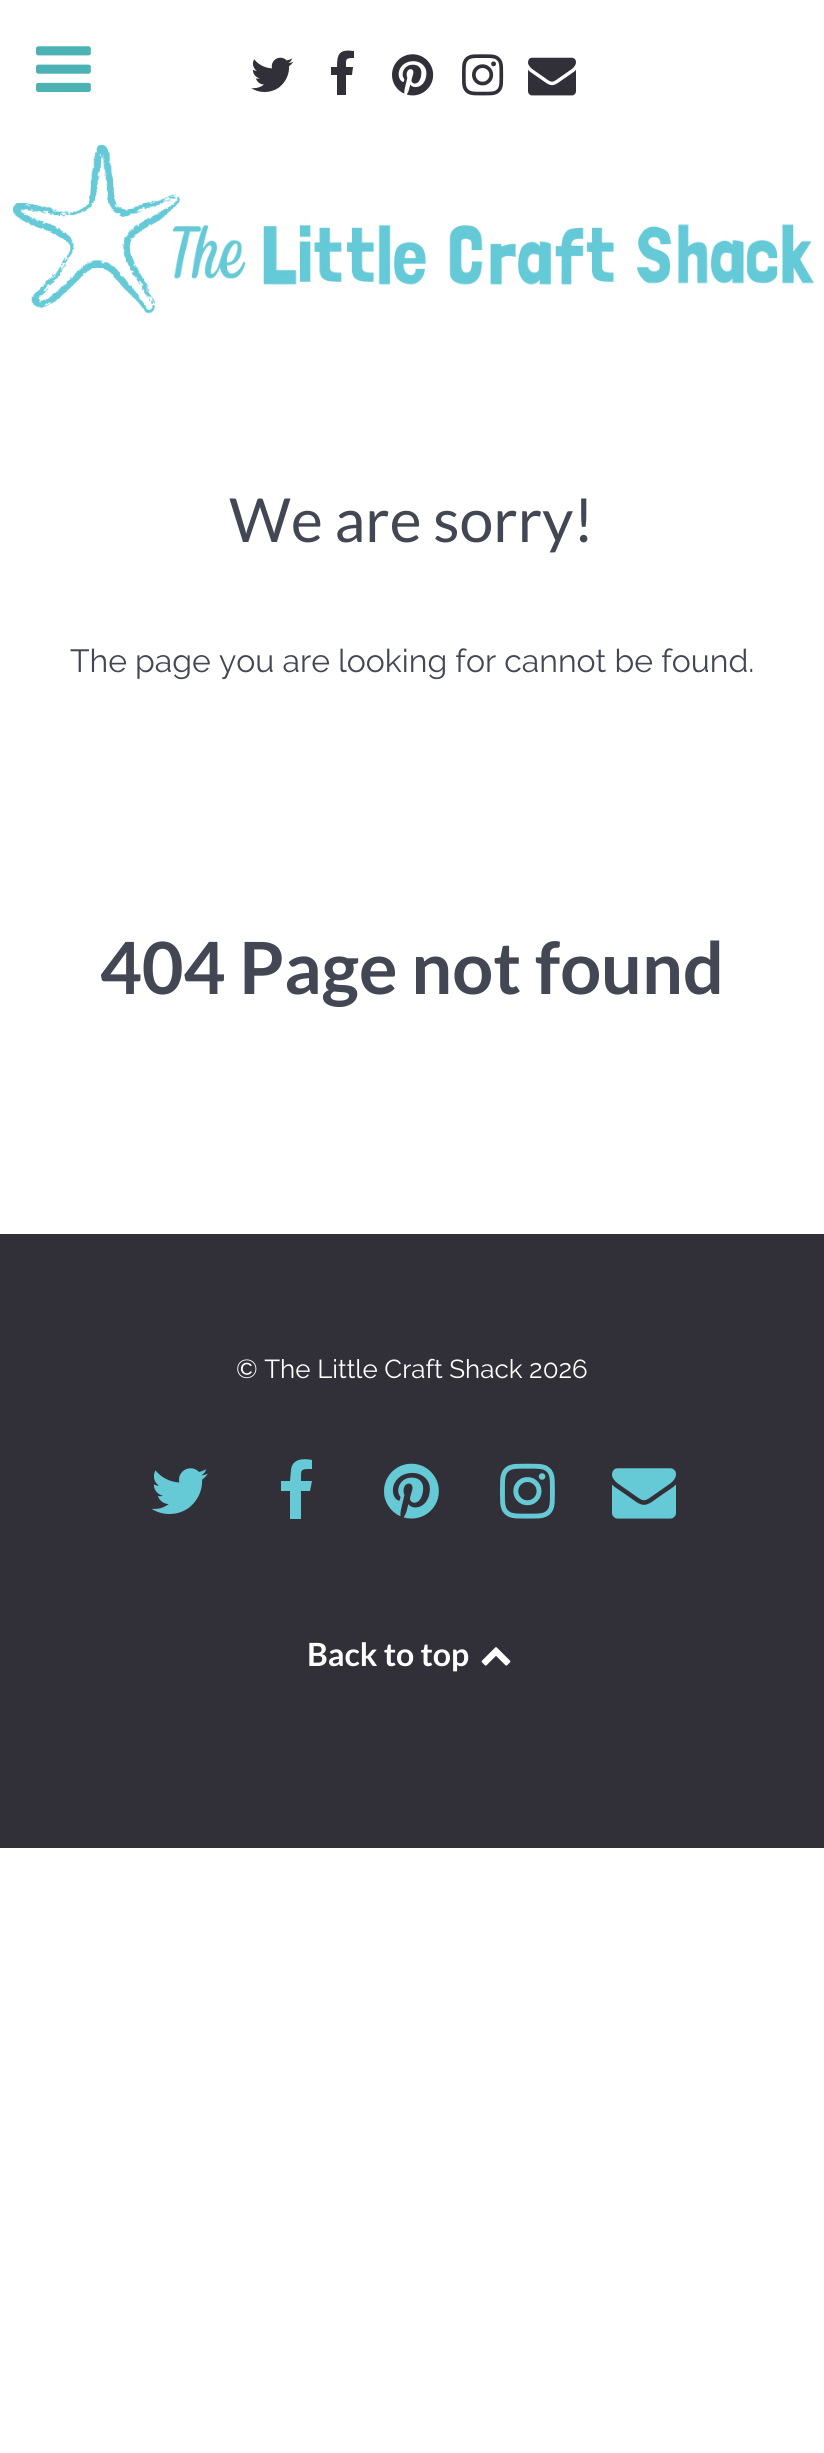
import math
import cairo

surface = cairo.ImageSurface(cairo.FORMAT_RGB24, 824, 2453)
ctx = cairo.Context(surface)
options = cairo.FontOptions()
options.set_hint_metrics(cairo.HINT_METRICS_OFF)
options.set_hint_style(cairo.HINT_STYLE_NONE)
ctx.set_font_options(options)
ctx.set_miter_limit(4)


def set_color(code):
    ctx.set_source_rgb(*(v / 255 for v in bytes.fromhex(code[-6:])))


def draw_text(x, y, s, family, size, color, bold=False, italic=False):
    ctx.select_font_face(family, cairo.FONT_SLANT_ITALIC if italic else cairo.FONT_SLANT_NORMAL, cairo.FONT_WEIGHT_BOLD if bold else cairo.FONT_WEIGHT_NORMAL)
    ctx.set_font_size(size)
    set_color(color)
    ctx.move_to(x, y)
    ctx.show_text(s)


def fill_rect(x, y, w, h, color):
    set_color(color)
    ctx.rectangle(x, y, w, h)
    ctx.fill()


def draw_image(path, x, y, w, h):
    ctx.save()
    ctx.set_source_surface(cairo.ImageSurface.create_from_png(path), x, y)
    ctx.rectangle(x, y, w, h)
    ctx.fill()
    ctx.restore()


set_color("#ffffff")
ctx.paint()
draw_image("assets/img1.png", 36, 46, 55, 46)
draw_image("assets/img2.png", 251, 57, 43, 35)
set_color("#312f38")
ctx.new_path()
ctx.move_to(354, 51)
ctx.line_to(354, 58)
ctx.curve_to(345, 58, 346, 59, 346, 67)
ctx.line_to(353, 67)
ctx.line_to(352, 75)
ctx.line_to(346, 75)
ctx.line_to(346, 95)
ctx.line_to(337, 95)
ctx.line_to(337, 75)
ctx.line_to(331, 75)
ctx.line_to(331, 67)
ctx.line_to(337, 67)
ctx.curve_to(337, 54, 339, 49, 354, 51)
ctx.close_path()
ctx.fill()
draw_image("assets/img3.png", 392, 54, 42, 42)
draw_image("assets/img4.png", 462, 54, 42, 42)
draw_image("assets/img5.png", 528, 57, 48, 39)
draw_image("assets/img6.png", 12, 144, 802, 170)
draw_text(229, 542, "We are sorry!", "Lato", 60.75, "#424753")
draw_text(70, 672, "The page you are looking for cannot be found.", "Raleway", 32, "#424753")
draw_text(100, 994, "404 Page not found", "Lato", 72, "#424753", bold=True)
fill_rect(0, 1234, 824, 614, "#312f38")
draw_text(236, 1378, "© The Little Craft Shack 2026", "Raleway", 26, "#ffffff")
draw_image("assets/img7.png", 151, 1468, 57, 46)
set_color("#65cad6")
ctx.new_path()
ctx.move_to(312, 1460)
ctx.line_to(312, 1469)
ctx.curve_to(300, 1469, 301, 1469, 301, 1481)
ctx.line_to(312, 1481)
ctx.line_to(310, 1491)
ctx.line_to(301, 1491)
ctx.line_to(301, 1519)
ctx.line_to(290, 1519)
ctx.line_to(290, 1491)
ctx.line_to(281, 1491)
ctx.line_to(281, 1481)
ctx.line_to(290, 1481)
ctx.line_to(291, 1470)
ctx.curve_to(292, 1459, 303, 1458, 312, 1460)
ctx.close_path()
ctx.fill()
draw_image("assets/img8.png", 384, 1463, 55, 56)
draw_image("assets/img9.png", 500, 1463, 55, 56)
draw_image("assets/img10.png", 612, 1468, 64, 51)
draw_text(307, 1666, "Back to top", "Lato", 32, "#ffffff", bold=True)
draw_image("assets/img11.png", 481, 1647, 30, 19)
surface.write_to_png("output.png")
